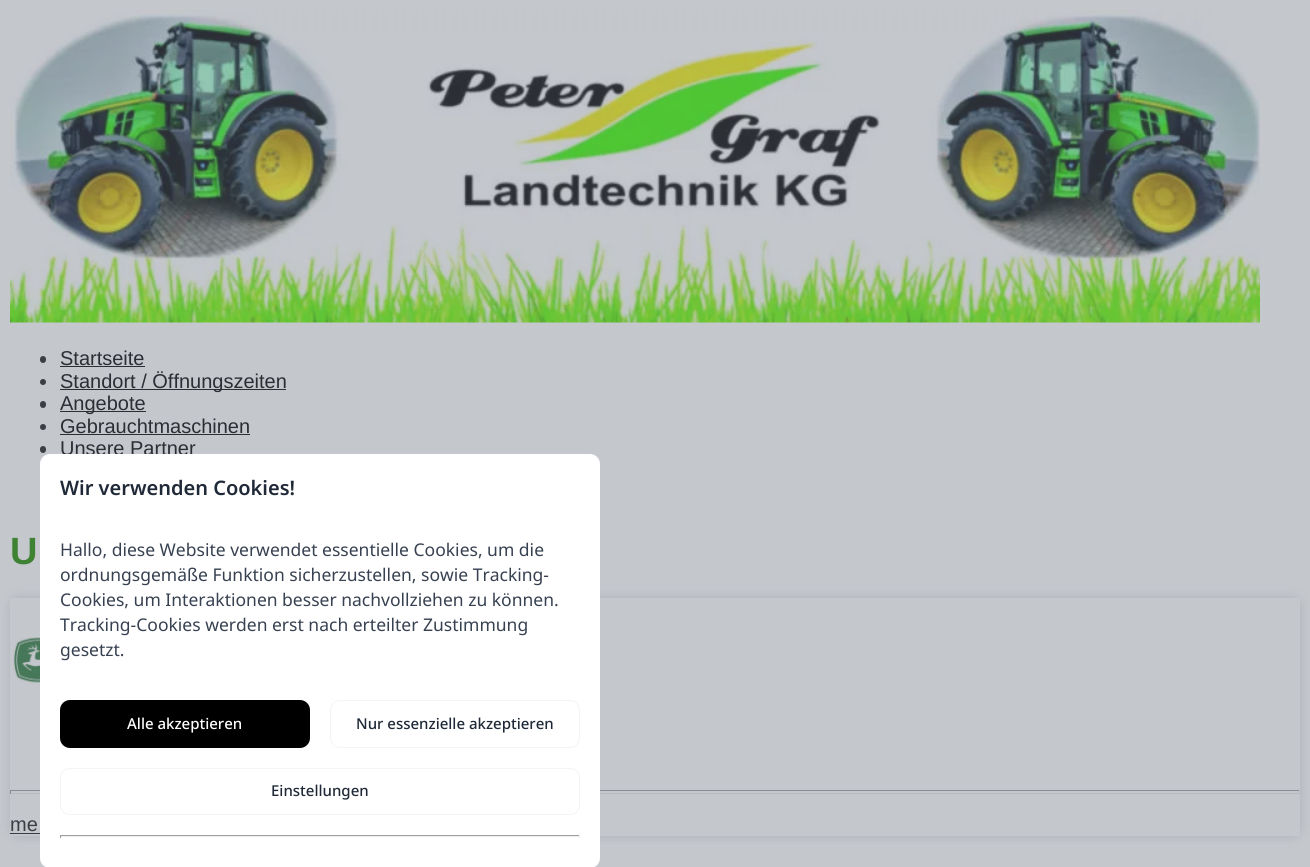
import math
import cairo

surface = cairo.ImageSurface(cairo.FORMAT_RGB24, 1310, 867)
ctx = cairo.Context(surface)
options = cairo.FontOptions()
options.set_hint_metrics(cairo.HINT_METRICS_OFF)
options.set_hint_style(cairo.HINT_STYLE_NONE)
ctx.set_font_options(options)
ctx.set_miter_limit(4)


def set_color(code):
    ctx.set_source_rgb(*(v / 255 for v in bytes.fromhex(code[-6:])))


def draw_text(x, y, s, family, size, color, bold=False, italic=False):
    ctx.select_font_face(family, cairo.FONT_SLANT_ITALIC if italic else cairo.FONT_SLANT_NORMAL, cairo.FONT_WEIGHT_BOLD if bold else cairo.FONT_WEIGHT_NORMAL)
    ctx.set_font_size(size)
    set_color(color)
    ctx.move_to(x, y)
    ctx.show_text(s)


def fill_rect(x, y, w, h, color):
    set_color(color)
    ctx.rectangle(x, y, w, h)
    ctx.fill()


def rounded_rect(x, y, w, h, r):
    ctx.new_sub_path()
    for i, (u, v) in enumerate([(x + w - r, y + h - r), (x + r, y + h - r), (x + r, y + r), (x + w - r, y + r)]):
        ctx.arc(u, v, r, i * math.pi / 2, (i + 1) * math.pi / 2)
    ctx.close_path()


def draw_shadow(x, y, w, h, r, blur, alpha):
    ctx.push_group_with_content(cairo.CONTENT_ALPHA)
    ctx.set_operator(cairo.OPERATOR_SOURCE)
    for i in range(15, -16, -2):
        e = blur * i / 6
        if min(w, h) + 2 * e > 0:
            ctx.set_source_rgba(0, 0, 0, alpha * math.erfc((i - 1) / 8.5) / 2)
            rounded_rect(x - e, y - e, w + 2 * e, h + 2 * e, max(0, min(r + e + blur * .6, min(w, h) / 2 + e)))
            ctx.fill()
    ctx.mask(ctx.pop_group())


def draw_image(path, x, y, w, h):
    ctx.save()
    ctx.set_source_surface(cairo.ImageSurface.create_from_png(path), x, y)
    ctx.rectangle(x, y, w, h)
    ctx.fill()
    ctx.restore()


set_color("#c4c7cc")
ctx.paint()
draw_image("assets/img1.png", 10, 10, 1250, 313)
set_color("#3c3e44")
rounded_rect(40, 356, 6, 7, 3)
ctx.fill()
draw_text(60, 365, "Startseite", "Liberation Sans", 20, "#2b2e33")
fill_rect(60, 366, 85, 1, "#2b2e33")
set_color("#3c3e44")
ctx.new_path()
ctx.arc(43, 382, 3, 0, 2 * math.pi)
ctx.fill()
fill_rect(60, 389, 226, 1, "#2b2e33")
draw_text(60, 388, "Standort / Öffnungszeiten", "Liberation Sans", 20, "#2b2e33")
set_color("#3c3e44")
rounded_rect(40, 401, 6, 7, 3)
ctx.fill()
fill_rect(60, 411, 86, 1, "#2b2e33")
draw_text(60, 410, "Angebote", "Liberation Sans", 20, "#2b2e33")
set_color("#3c3e44")
ctx.new_path()
ctx.arc(43, 427, 3, 0, 2 * math.pi)
ctx.fill()
draw_text(60, 433, "Gebrauchtmaschinen", "Liberation Sans", 20, "#2b2e33")
fill_rect(60, 434, 190, 1, "#2b2e33")
set_color("#3c3e44")
rounded_rect(40, 446, 6, 7, 3)
ctx.fill()
draw_text(60, 455, "Unsere Partner", "Liberation Sans", 20, "#2b2e33")
draw_text(10, 564, "U", "Liberation Sans", 38, "#3e8233", bold=True)
ctx.save()
ctx.set_fill_rule(cairo.FILL_RULE_EVEN_ODD)
ctx.new_path()
ctx.move_to(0, 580)
ctx.line_to(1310, 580)
ctx.line_to(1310, 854)
ctx.line_to(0, 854)
ctx.close_path()
ctx.move_to(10, 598)
ctx.line_to(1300, 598)
ctx.line_to(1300, 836)
ctx.line_to(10, 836)
ctx.close_path()
ctx.clip()
set_color("#888b91")
draw_shadow(18, 605, 1275, 224, 0, 8, 1)
ctx.restore()
draw_image("assets/img2.png", 13, 637, 27, 46)
fill_rect(10, 790, 1290, 1, "#8a8d93")
fill_rect(1299, 790, 1, 4, "#babcc2")
fill_rect(10, 793, 1290, 1, "#babcc2")
fill_rect(10, 790, 1, 4, "#8a8d93")
draw_text(10, 831, "me", "Liberation Sans", 20, "#3c3e44")
fill_rect(10, 833, 30, 1, "#3c3e44")
set_color("#ffffff")
rounded_rect(40, 454, 560, 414, 10)
ctx.fill()
draw_text(60, 495, "Wir verwenden Cookies!", "Noto Sans SemiBold", 20, "#1f2937")
draw_text(60, 556, "Hallo, diese Website verwendet essentielle Cookies, um die", "Noto Sans", 17.5, "#374151")
draw_text(60, 581, "ordnungsgemäße Funktion sicherzustellen, sowie Tracking-", "Noto Sans", 17.5, "#374151")
draw_text(60, 606, "Cookies, um Interaktionen besser nachvollziehen zu können.", "Noto Sans", 17.5, "#374151")
draw_text(60, 631, "Tracking-Cookies werden erst nach erteilter Zustimmung", "Noto Sans", 17.5, "#374151")
draw_text(60, 656, "gesetzt.", "Noto Sans", 17.5, "#374151")
set_color("#000000")
rounded_rect(60, 700, 250, 48, 10)
ctx.fill()
draw_text(127, 729, "Alle akzeptieren", "Noto Sans Medium", 15, "#ffffff")
rounded_rect(330.5, 700.5, 249, 47, 9.5)
set_color("#f3f4f6")
ctx.set_line_width(1)
ctx.stroke()
draw_text(356, 729, "Nur essenzielle akzeptieren", "Noto Sans Medium", 15, "#1f2937")
rounded_rect(60.5, 768.5, 519, 46, 9.5)
set_color("#f3f4f6")
ctx.stroke()
draw_text(271, 796, "Einstellungen", "Noto Sans Medium", 15, "#1f2937")
fill_rect(60, 835, 520, 1, "#9f9f9f")
fill_rect(579, 835, 1, 3, "#eeeeee")
fill_rect(60, 836, 520, 1, "#eeeeee")
fill_rect(60, 835, 1, 3, "#9f9f9f")
surface.write_to_png("output.png")
